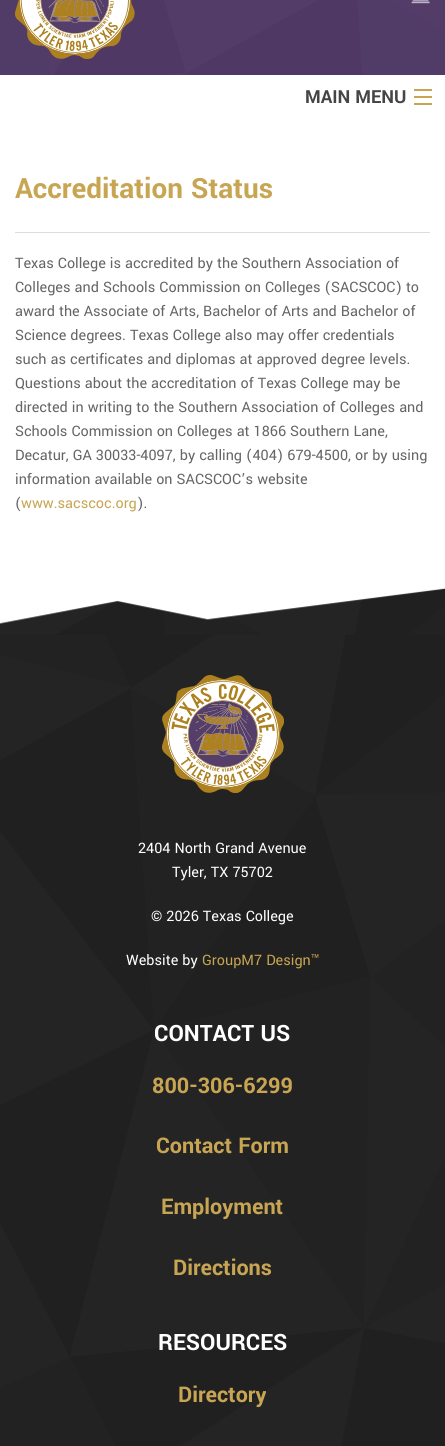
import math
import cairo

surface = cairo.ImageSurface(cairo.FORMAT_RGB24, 445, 1446)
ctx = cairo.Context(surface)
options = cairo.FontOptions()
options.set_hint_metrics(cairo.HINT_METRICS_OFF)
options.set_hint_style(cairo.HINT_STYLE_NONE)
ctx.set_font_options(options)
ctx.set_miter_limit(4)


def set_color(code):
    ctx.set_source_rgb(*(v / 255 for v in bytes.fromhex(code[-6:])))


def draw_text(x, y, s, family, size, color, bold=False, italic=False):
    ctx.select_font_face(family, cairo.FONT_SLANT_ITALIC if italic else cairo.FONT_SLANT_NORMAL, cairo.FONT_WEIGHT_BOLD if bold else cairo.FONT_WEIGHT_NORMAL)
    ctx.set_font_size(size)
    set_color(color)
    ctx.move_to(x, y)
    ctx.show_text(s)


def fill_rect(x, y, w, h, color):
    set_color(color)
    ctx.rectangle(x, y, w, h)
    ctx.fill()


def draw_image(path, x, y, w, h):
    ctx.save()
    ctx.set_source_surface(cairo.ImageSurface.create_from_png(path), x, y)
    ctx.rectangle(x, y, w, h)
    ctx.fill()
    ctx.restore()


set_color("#ffffff")
ctx.paint()
draw_image("assets/img1.png", 0, 0, 445, 75)
draw_image("assets/img2.png", 15, 0, 120, 59)
draw_image("assets/img3.png", 411, 0, 19, 4)
draw_text(305, 103, "MAIN MENU", "Yantramanav", 20, "#454545", bold=True)
fill_rect(414, 103, 18, 2, "#c7a553")
fill_rect(414, 96, 18, 2, "#c7a553")
fill_rect(414, 89, 18, 2, "#c7a553")
draw_text(15, 198, "Accreditation Status", "Yantramanav", 31, "#c7a553", bold=True)
fill_rect(15, 232, 415, 1, "#dddddd")
draw_text(15, 268, "Texas College is accredited by the Southern Association of", "Yantramanav", 16, "#656565")
draw_text(15, 292, "Colleges and Schools Commission on Colleges (SACSCOC) to", "Yantramanav", 16, "#656565")
draw_text(15, 316, "award the Associate of Arts, Bachelor of Arts and Bachelor of", "Yantramanav", 16, "#656565")
draw_text(15, 340, "Science degrees. Texas College also may offer credentials", "Yantramanav", 16, "#656565")
draw_text(15, 364, "such as certificates and diplomas at approved degree levels.", "Yantramanav", 16, "#656565")
draw_text(15, 388, "Questions about the accreditation of Texas College may be", "Yantramanav", 16, "#656565")
draw_text(15, 412, "directed in writing to the Southern Association of Colleges and", "Yantramanav", 16, "#656565")
draw_text(15, 436, "Schools Commission on Colleges at 1866 Southern Lane,", "Yantramanav", 16, "#656565")
draw_text(15, 460, "Decatur, GA 30033-4097, by calling (404) 679-4500, or by using", "Yantramanav", 16, "#656565")
draw_text(15, 484, "information available on SACSCOC’s website", "Yantramanav", 16, "#656565")
draw_text(15, 508, "(", "Yantramanav", 16, "#656565")
draw_text(21, 508, "www.sacscoc.org", "Yantramanav", 16, "#c7a553")
draw_text(137, 508, ").", "Yantramanav", 16, "#656565")
draw_image("assets/img4.png", 0, 588, 445, 47)
draw_image("assets/img5.png", 0, 635, 445, 811)
draw_image("assets/img6.png", 162, 675, 122, 118)
draw_text(138, 853, "2404 North Grand Avenue", "Yantramanav", 16, "#ffffff")
draw_text(172, 877, "Tyler, TX 75702", "Yantramanav", 16, "#ffffff")
draw_text(151, 921, "© 2026 Texas College", "Yantramanav", 16, "#ffffff")
draw_text(126, 965, "Website by", "Yantramanav", 16, "#ffffff")
draw_text(202, 965, "GroupM7 Design™", "Yantramanav", 16, "#c7a553")
draw_text(154, 1041, "CONTACT US", "Yantramanav", 25, "#ffffff", bold=True)
draw_text(152, 1093, "800-306-6299", "Yantramanav", 24, "#c7a553", bold=True)
draw_text(156, 1153, "Contact Form", "Yantramanav", 24, "#c7a553", bold=True)
draw_text(161, 1214, "Employment", "Yantramanav", 24, "#c7a553", bold=True)
draw_text(173, 1275, "Directions", "Yantramanav", 24, "#c7a553", bold=True)
draw_text(158, 1350, "RESOURCES", "Yantramanav", 25, "#ffffff", bold=True)
draw_text(178, 1402, "Directory", "Yantramanav", 24, "#c7a553", bold=True)
surface.write_to_png("output.png")
